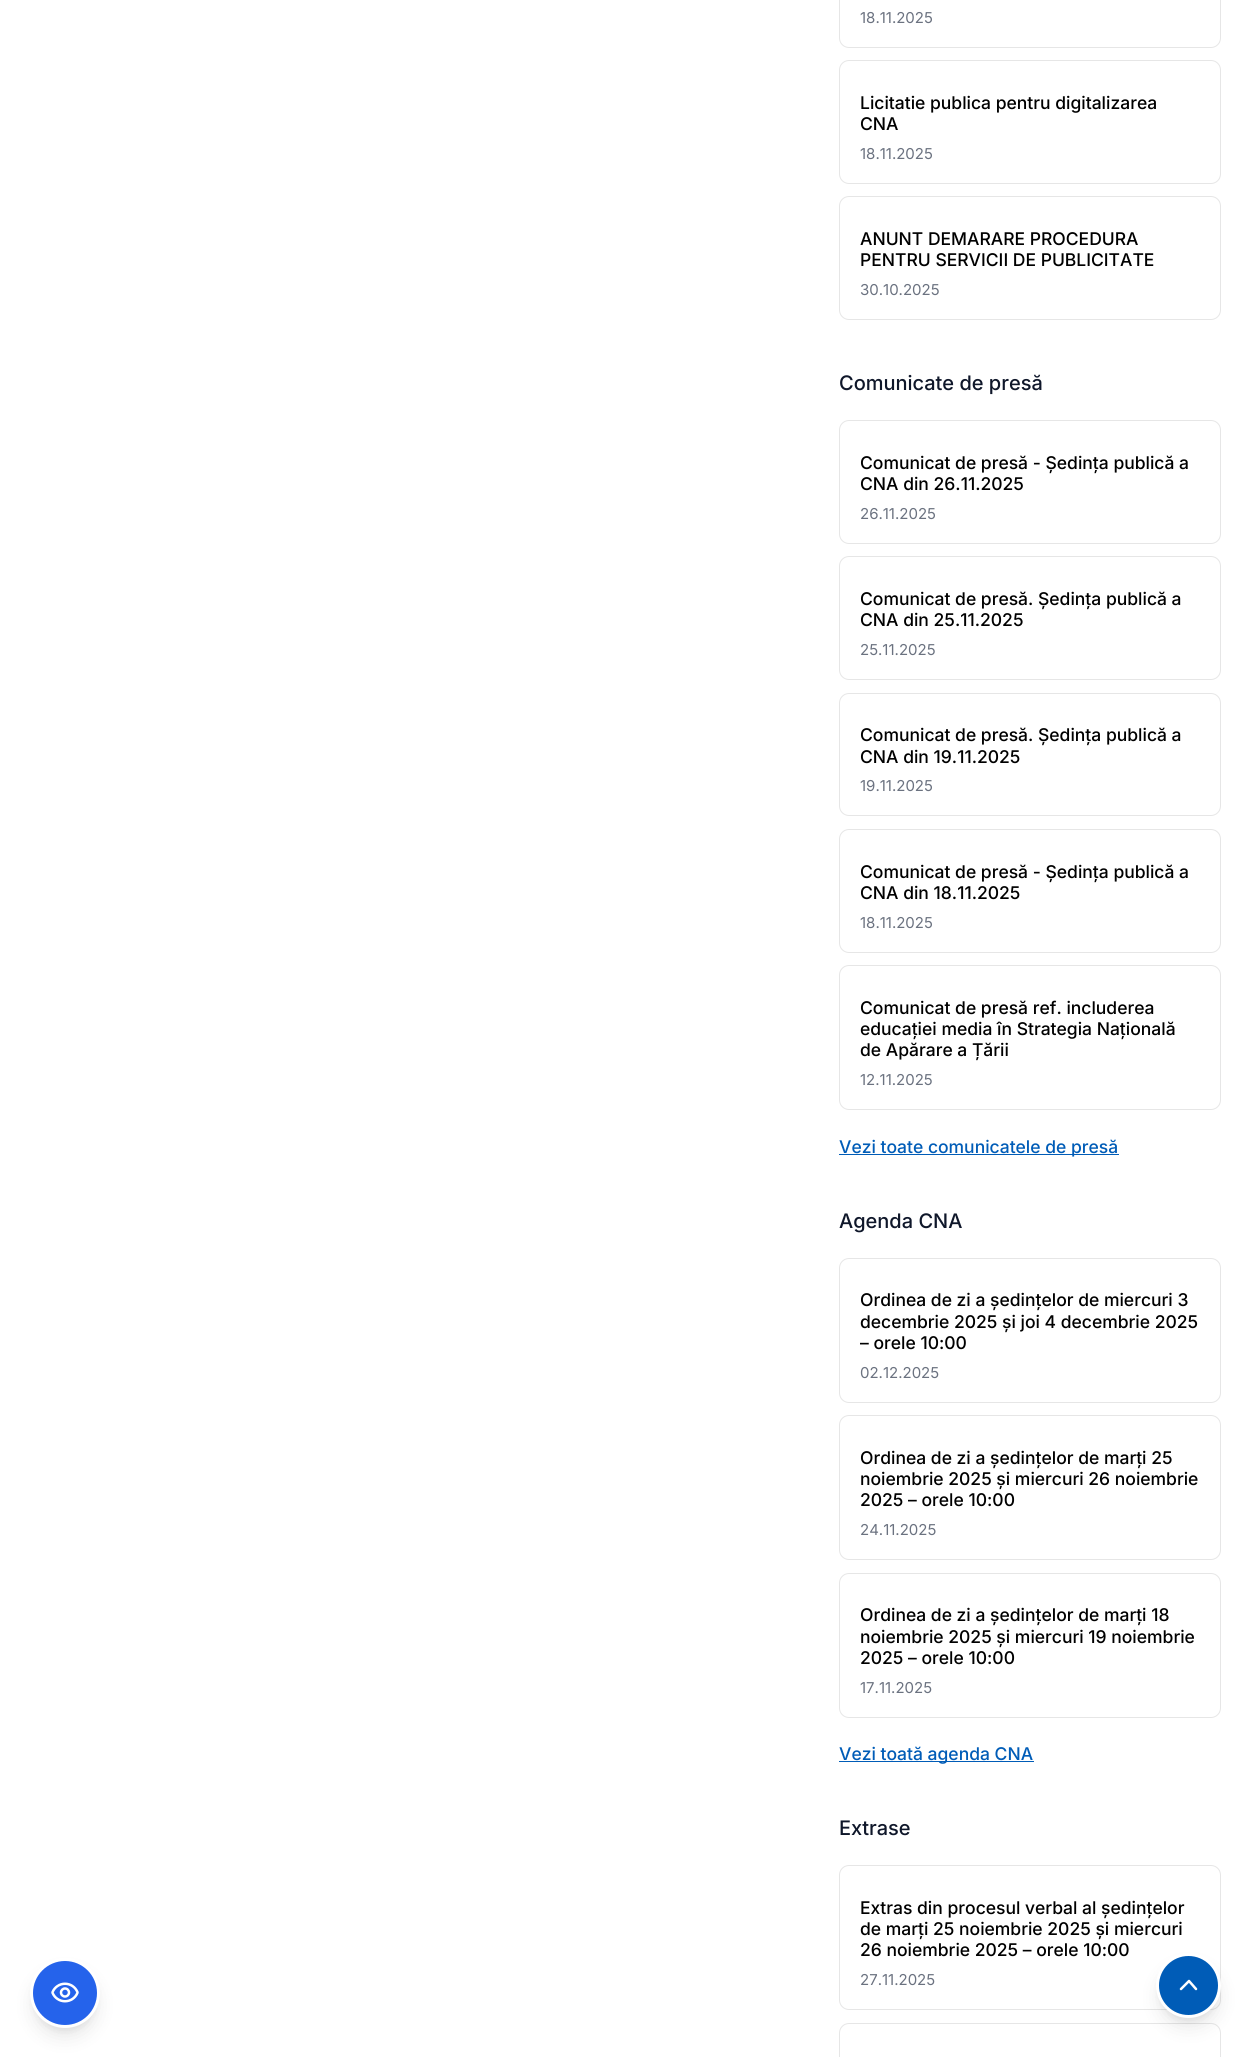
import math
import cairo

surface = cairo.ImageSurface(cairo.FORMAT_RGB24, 1246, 2057)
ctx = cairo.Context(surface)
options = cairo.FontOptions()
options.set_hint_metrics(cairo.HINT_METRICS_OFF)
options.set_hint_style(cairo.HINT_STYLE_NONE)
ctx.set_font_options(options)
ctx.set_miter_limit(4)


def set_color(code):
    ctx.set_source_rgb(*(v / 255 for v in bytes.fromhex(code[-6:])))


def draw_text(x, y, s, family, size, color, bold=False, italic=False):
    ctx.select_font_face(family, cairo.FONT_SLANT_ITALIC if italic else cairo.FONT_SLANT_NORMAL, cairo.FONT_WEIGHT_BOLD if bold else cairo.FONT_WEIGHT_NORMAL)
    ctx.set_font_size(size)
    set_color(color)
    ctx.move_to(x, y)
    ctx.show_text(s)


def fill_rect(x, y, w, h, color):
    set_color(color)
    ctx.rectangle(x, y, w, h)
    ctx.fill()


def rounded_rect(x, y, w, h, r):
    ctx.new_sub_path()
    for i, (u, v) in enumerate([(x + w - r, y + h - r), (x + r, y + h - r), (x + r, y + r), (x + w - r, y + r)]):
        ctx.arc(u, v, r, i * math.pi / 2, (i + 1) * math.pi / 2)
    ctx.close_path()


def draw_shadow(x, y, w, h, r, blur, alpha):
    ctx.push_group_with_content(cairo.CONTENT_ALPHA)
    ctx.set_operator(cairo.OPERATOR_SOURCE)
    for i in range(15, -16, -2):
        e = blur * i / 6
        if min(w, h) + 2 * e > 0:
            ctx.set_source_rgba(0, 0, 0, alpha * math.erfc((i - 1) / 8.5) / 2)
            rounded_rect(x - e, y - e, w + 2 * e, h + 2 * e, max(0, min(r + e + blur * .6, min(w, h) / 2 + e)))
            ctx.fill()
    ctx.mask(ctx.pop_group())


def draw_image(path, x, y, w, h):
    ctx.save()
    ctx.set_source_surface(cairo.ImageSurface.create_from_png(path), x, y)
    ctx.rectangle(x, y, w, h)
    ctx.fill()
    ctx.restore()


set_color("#ffffff")
ctx.paint()
rounded_rect(839.5, -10.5, 381, 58, 9.5)
set_color("#e6e6e6")
ctx.set_line_width(1)
ctx.stroke()
draw_text(860, 23, "18.11.2025", "Inter", 15, "#6b7280")
rounded_rect(839.5, 60.5, 381, 123, 9.5)
set_color("#e6e6e6")
ctx.stroke()
draw_text(860, 109, "Licitatie publica pentru digitalizarea", "Inter Medium", 17.5, "#000000")
draw_text(860, 130, "CNA", "Inter Medium", 17.5, "#000000")
draw_text(860, 159, "18.11.2025", "Inter", 15, "#6b7280")
rounded_rect(839.5, 196.5, 381, 123, 9.5)
set_color("#e6e6e6")
ctx.stroke()
draw_text(860, 245, "ANUNT DEMARARE PROCEDURA", "Inter Medium", 17.5, "#000000")
draw_text(860, 266, "PENTRU SERVICII DE PUBLICITATE", "Inter Medium", 17.5, "#000000")
draw_text(860, 295, "30.10.2025", "Inter", 15, "#6b7280")
draw_text(839, 390, "Comunicate de presă", "Inter Medium", 20, "#0f172a")
rounded_rect(839.5, 420.5, 381, 123, 9.5)
set_color("#e6e6e6")
ctx.stroke()
draw_text(860, 469, "Comunicat de presă - Ședința publică a", "Inter Medium", 17.5, "#000000")
draw_text(860, 490, "CNA din 26.11.2025", "Inter Medium", 17.5, "#000000")
draw_text(860, 519, "26.11.2025", "Inter", 15, "#6b7280")
rounded_rect(839.5, 556.5, 381, 123, 9.5)
set_color("#e6e6e6")
ctx.stroke()
draw_text(860, 605, "Comunicat de presă. Ședința publică a", "Inter Medium", 17.5, "#000000")
draw_text(860, 626, "CNA din 25.11.2025", "Inter Medium", 17.5, "#000000")
draw_text(860, 655, "25.11.2025", "Inter", 15, "#6b7280")
rounded_rect(839.5, 693.5, 381, 122, 9.5)
set_color("#e6e6e6")
ctx.stroke()
draw_text(860, 741, "Comunicat de presă. Ședința publică a", "Inter Medium", 17.5, "#000000")
draw_text(860, 763, "CNA din 19.11.2025", "Inter Medium", 17.5, "#000000")
draw_text(860, 791, "19.11.2025", "Inter", 15, "#6b7280")
rounded_rect(839.5, 829.5, 381, 123, 9.5)
set_color("#e6e6e6")
ctx.stroke()
draw_text(860, 878, "Comunicat de presă - Ședința publică a", "Inter Medium", 17.5, "#000000")
draw_text(860, 899, "CNA din 18.11.2025", "Inter Medium", 17.5, "#000000")
draw_text(860, 928, "18.11.2025", "Inter", 15, "#6b7280")
rounded_rect(839.5, 965.5, 381, 144, 9.5)
set_color("#e6e6e6")
ctx.stroke()
draw_text(860, 1014, "Comunicat de presă ref. includerea", "Inter Medium", 17.5, "#000000")
draw_text(860, 1035, "educației media în Strategia Națională", "Inter Medium", 17.5, "#000000")
draw_text(860, 1056, "de Apărare a Țării", "Inter Medium", 17.5, "#000000")
draw_text(860, 1085, "12.11.2025", "Inter", 15, "#6b7280")
fill_rect(839, 1154, 280, 1, "#005cb7")
draw_text(839, 1153, "Vezi toate comunicatele de presă", "Inter Medium", 17.5, "#005cb7")
draw_text(839, 1228, "Agenda CNA", "Inter Medium", 20, "#0f172a")
rounded_rect(839.5, 1258.5, 381, 144, 9.5)
set_color("#e6e6e6")
ctx.stroke()
draw_text(860, 1306, "Ordinea de zi a ședințelor de miercuri 3", "Inter Medium", 17.5, "#000000")
draw_text(860, 1328, "decembrie 2025 și joi 4 decembrie 2025", "Inter Medium", 17.5, "#000000")
draw_text(860, 1349, "– orele 10:00", "Inter Medium", 17.5, "#000000")
draw_text(860, 1378, "02.12.2025", "Inter", 15, "#6b7280")
rounded_rect(839.5, 1415.5, 381, 144, 9.5)
set_color("#e6e6e6")
ctx.stroke()
draw_text(860, 1464, "Ordinea de zi a ședințelor de marți 25", "Inter Medium", 17.5, "#000000")
draw_text(860, 1485, "noiembrie 2025 și miercuri 26 noiembrie", "Inter Medium", 17.5, "#000000")
draw_text(860, 1506, "2025 – orele 10:00", "Inter Medium", 17.5, "#000000")
draw_text(860, 1535, "24.11.2025", "Inter", 15, "#6b7280")
rounded_rect(839.5, 1573.5, 381, 144, 9.5)
set_color("#e6e6e6")
ctx.stroke()
draw_text(860, 1621, "Ordinea de zi a ședințelor de marți 18", "Inter Medium", 17.5, "#000000")
draw_text(860, 1643, "noiembrie 2025 și miercuri 19 noiembrie", "Inter Medium", 17.5, "#000000")
draw_text(860, 1664, "2025 – orele 10:00", "Inter Medium", 17.5, "#000000")
draw_text(860, 1693, "17.11.2025", "Inter", 15, "#6b7280")
fill_rect(839, 1761, 195, 1, "#005cb7")
draw_text(839, 1760, "Vezi toată agenda CNA", "Inter Medium", 17.5, "#005cb7")
draw_text(839, 1835, "Extrase", "Inter Medium", 20, "#0f172a")
rounded_rect(839.5, 1865.5, 381, 144, 9.5)
set_color("#e6e6e6")
ctx.stroke()
draw_text(860, 1914, "Extras din procesul verbal al ședințelor", "Inter Medium", 17.5, "#000000")
draw_text(860, 1935, "de marți 25 noiembrie 2025 și miercuri", "Inter Medium", 17.5, "#000000")
draw_text(860, 1956, "26 noiembrie 2025 – orele 10:00", "Inter Medium", 17.5, "#000000")
draw_text(860, 1985, "27.11.2025", "Inter", 15, "#6b7280")
rounded_rect(839.5, 2023.5, 381, 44, 9.5)
set_color("#e6e6e6")
ctx.stroke()
set_color("#000000")
draw_shadow(35, 1968, 60, 60, 30, 4, 0.1)
draw_shadow(34, 1974, 62, 62, 31, 9.5, 0.1)
set_color("#2563eb")
ctx.arc(65, 1993, 33.5, 0, 2 * math.pi)
ctx.fill_preserve()
set_color("#ffffff")
ctx.set_line_width(3)
ctx.stroke()
draw_image("assets/img1.png", 51, 1982, 28, 21)
set_color("#000000")
draw_shadow(1161, 1963, 55, 55, 27.5, 4, 0.1)
draw_shadow(1160, 1969, 58, 57, 28.5, 9.5, 0.1)
set_color("#005cb7")
ctx.arc(1188.5, 1985.5, 31, 0, 2 * math.pi)
ctx.fill_preserve()
set_color("#ffffff")
ctx.stroke()
ctx.new_path()
ctx.move_to(1196, 1989)
ctx.line_to(1189, 1981)
ctx.line_to(1181, 1989)
ctx.set_line_width(2.5)
ctx.set_line_cap(cairo.LINE_CAP_ROUND)
ctx.set_line_join(cairo.LINE_JOIN_ROUND)
ctx.stroke()
surface.write_to_png("output.png")
